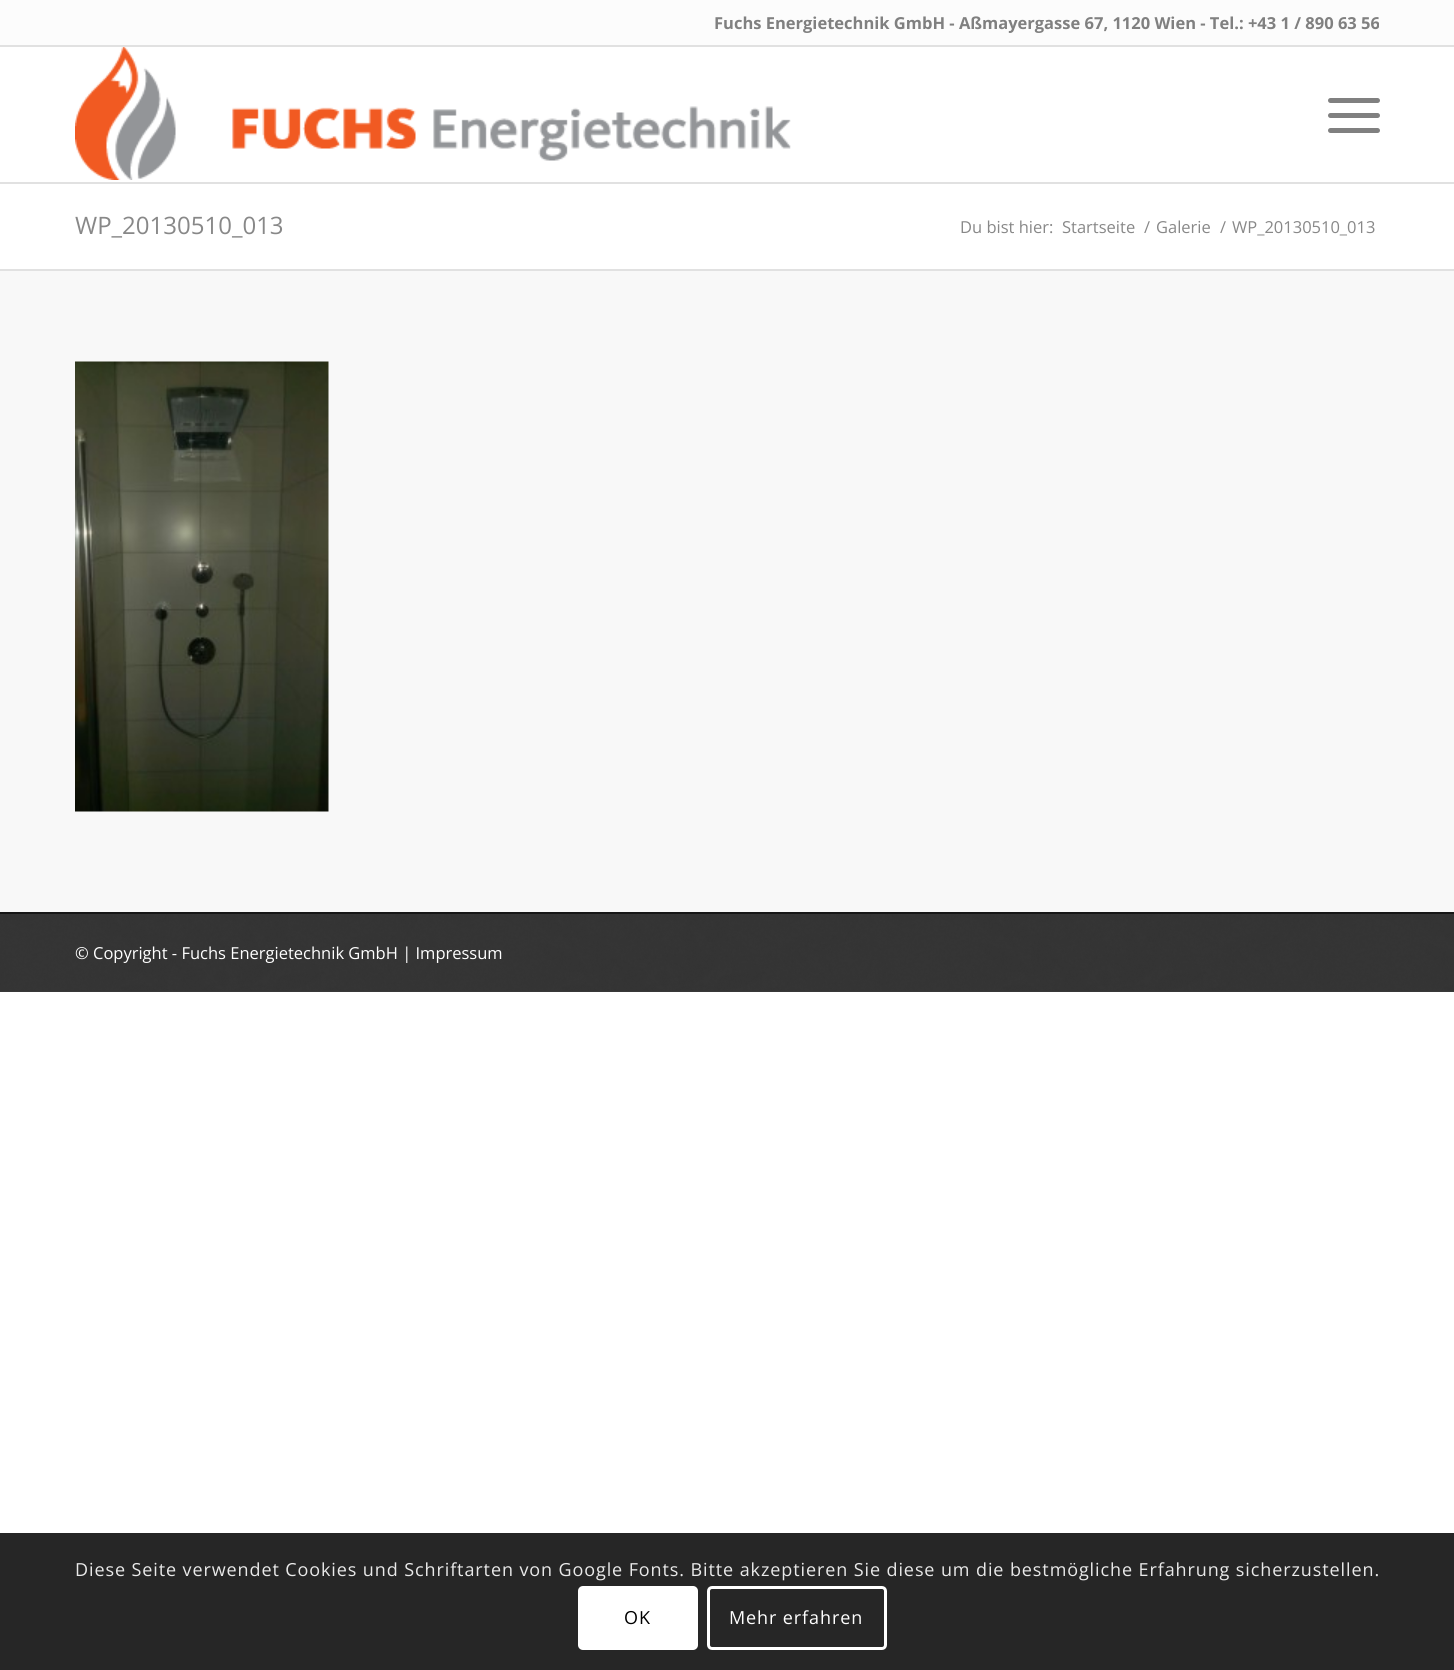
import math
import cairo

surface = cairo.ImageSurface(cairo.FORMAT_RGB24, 1454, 1670)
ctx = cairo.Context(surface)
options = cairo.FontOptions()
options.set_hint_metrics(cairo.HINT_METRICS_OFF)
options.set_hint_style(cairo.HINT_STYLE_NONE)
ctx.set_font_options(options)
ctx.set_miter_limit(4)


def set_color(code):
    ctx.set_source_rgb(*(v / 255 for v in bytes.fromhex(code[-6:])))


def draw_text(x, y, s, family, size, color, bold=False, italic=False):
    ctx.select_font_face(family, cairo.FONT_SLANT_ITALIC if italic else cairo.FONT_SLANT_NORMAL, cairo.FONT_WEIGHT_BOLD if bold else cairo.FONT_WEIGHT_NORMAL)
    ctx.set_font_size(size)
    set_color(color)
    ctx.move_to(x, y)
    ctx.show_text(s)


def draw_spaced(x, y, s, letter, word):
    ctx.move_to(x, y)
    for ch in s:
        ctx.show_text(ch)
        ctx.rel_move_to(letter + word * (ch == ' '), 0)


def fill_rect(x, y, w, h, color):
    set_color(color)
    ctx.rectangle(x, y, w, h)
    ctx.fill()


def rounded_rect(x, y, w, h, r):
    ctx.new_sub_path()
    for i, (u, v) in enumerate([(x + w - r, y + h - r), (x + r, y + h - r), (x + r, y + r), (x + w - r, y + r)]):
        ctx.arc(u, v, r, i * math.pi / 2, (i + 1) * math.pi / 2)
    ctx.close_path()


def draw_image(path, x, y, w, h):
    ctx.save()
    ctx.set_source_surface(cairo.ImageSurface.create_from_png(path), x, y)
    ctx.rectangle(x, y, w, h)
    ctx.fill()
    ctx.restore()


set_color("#ffffff")
ctx.paint()
fill_rect(0, 0, 1454, 45, "#fcfcfc")
fill_rect(0, 45, 1454, 2, "#e1e1e1")
draw_text(714, 29, "Fuchs Energietechnik GmbH - Aßmayergasse 67, 1120 Wien - Tel.: +43 1 / 890 63 56", "Open Sans", 16.5, "#808080", bold=True)
fill_rect(0, 182, 1454, 2, "#e1e1e1")
draw_image("assets/img1.png", 75, 47, 716, 133)
set_color("#808080")
rounded_rect(1328, 113, 52, 5, 2.5)
ctx.fill()
rounded_rect(1328, 98, 52, 5, 2.5)
ctx.fill()
rounded_rect(1328, 128, 52, 5, 2.5)
ctx.fill()
draw_text(75, 234, "WP_20130510_013", "Open Sans", 24, "#888888")
draw_text(960, 233, "Du bist hier:", "Open Sans", 16.5, "#888888")
draw_text(1062, 233, "Startseite", "Open Sans", 16.5, "#888888")
draw_text(1144, 233, "/", "Open Sans", 16.5, "#888888")
draw_text(1156, 233, "Galerie", "Open Sans", 16.5, "#888888")
draw_text(1220, 233, "/", "Open Sans", 16.5, "#888888")
draw_text(1232, 233, "WP_20130510_013", "Open Sans", 16.5, "#888888")
fill_rect(0, 271, 1454, 641, "#f8f8f8")
fill_rect(0, 269, 1454, 2, "#e1e1e1")
draw_image("assets/img2.png", 75, 361, 254, 451)
fill_rect(0, 914, 1454, 78, "#383838")
draw_image("assets/img3.png", 0, 914, 1454, 77)
fill_rect(0, 912, 1454, 2, "#161616")
draw_text(75, 959, "© Copyright - Fuchs Energietechnik GmbH | Impressum", "Open Sans", 16.5, "#ffffff")
fill_rect(0, 1533, 1454, 137, "#262626")
ctx.set_font_size(18)
set_color("#e9e9e9")
draw_spaced(75, 1576, "Diese Seite verwendet Cookies und Schriftarten von Google Fonts. Bitte akzeptieren Sie diese um die bestmögliche Erfahrung sicherzustellen.", 0.9, 0)
set_color("#ffffff")
rounded_rect(578, 1586, 120, 64, 5)
ctx.fill()
set_color("#000000")
draw_spaced(624, 1624, "OK", 0.9, 0)
rounded_rect(708.5, 1587.5, 177, 61, 3.5)
set_color("#ffffff")
ctx.set_line_width(3)
ctx.stroke()
draw_spaced(729, 1624, "Mehr erfahren", 0.9, 0)
surface.write_to_png("output.png")
